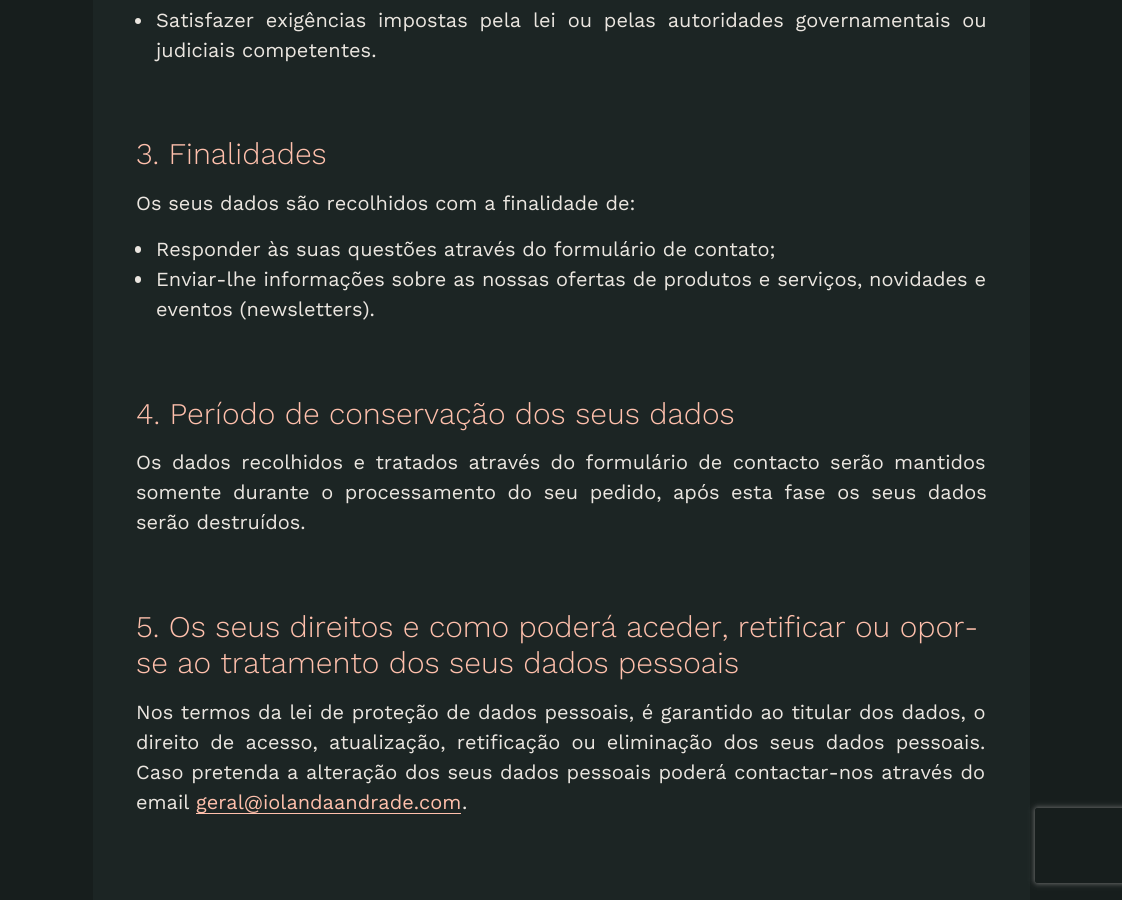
import math
import cairo

surface = cairo.ImageSurface(cairo.FORMAT_RGB24, 1122, 900)
ctx = cairo.Context(surface)
options = cairo.FontOptions()
options.set_hint_metrics(cairo.HINT_METRICS_OFF)
options.set_hint_style(cairo.HINT_STYLE_NONE)
ctx.set_font_options(options)
ctx.set_miter_limit(4)


def set_color(code):
    ctx.set_source_rgb(*(v / 255 for v in bytes.fromhex(code[-6:])))


def draw_text(x, y, s, family, size, color, bold=False, italic=False):
    ctx.select_font_face(family, cairo.FONT_SLANT_ITALIC if italic else cairo.FONT_SLANT_NORMAL, cairo.FONT_WEIGHT_BOLD if bold else cairo.FONT_WEIGHT_NORMAL)
    ctx.set_font_size(size)
    set_color(color)
    ctx.move_to(x, y)
    ctx.show_text(s)


def draw_spaced(x, y, s, letter, word):
    ctx.move_to(x, y)
    for ch in s:
        ctx.show_text(ch)
        ctx.rel_move_to(letter + word * (ch == ' '), 0)


def fill_rect(x, y, w, h, color):
    set_color(color)
    ctx.rectangle(x, y, w, h)
    ctx.fill()


def rounded_rect(x, y, w, h, r):
    ctx.new_sub_path()
    for i, (u, v) in enumerate([(x + w - r, y + h - r), (x + r, y + h - r), (x + r, y + r), (x + w - r, y + r)]):
        ctx.arc(u, v, r, i * math.pi / 2, (i + 1) * math.pi / 2)
    ctx.close_path()


def draw_shadow(x, y, w, h, r, blur, alpha):
    ctx.push_group_with_content(cairo.CONTENT_ALPHA)
    ctx.set_operator(cairo.OPERATOR_SOURCE)
    for i in range(15, -16, -2):
        e = blur * i / 6
        if min(w, h) + 2 * e > 0:
            ctx.set_source_rgba(0, 0, 0, alpha * math.erfc((i - 1) / 8.5) / 2)
            rounded_rect(x - e, y - e, w + 2 * e, h + 2 * e, max(0, min(r + e + blur * .6, min(w, h) / 2 + e)))
            ctx.fill()
    ctx.mask(ctx.pop_group())


set_color("#171e1d")
ctx.paint()
fill_rect(93, 0, 937, 900, "#1c2524")
set_color("#ebe6e0")
ctx.arc(138, 21, 3, 0, 2 * math.pi)
ctx.fill()
ctx.select_font_face("Work Sans")
ctx.set_font_size(20)
draw_spaced(156, 27, "Satisfazer exigências impostas pela lei ou pelas autoridades governamentais ou", 0, 5)
draw_text(156, 57, "judiciais competentes.", "Work Sans", 20, "#ebe6e0")
draw_text(136, 164, "3. Finalidades", "Work Sans Light", 30, "#ffc0ac")
draw_text(136, 210, "Os seus dados são recolhidos com a finalidade de:", "Work Sans", 20, "#ebe6e0")
rounded_rect(135, 246, 6, 7, 3)
ctx.fill()
draw_text(156, 256, "Responder às suas questões através do formulário de contato;", "Work Sans", 20, "#ebe6e0")
rounded_rect(135, 276, 6, 7, 3)
ctx.fill()
draw_text(156, 286, "Enviar-lhe informações sobre as nossas ofertas de produtos e serviços, novidades e", "Work Sans", 20, "#ebe6e0")
draw_text(156, 316, "eventos (newsletters).", "Work Sans", 20, "#ebe6e0")
draw_text(136, 424, "4. Período de conservação dos seus dados", "Work Sans Light", 30, "#ffc0ac")
ctx.select_font_face("Work Sans")
ctx.set_font_size(20)
set_color("#ebe6e0")
draw_spaced(136, 469, "Os dados recolhidos e tratados através do formulário de contacto serão mantidos", 0, 3.6)
draw_spaced(136, 499, "somente durante o processamento do seu pedido, após esta fase os seus dados", 0, 4.75)
draw_text(136, 529, "serão destruídos.", "Work Sans", 20, "#ebe6e0")
draw_text(136, 637, "5. Os seus direitos e como poderá aceder, retificar ou opor-", "Work Sans Light", 30, "#ffc0ac")
draw_text(136, 673, "se ao tratamento dos seus dados pessoais", "Work Sans Light", 30, "#ffc0ac")
ctx.select_font_face("Work Sans")
ctx.set_font_size(20)
set_color("#ebe6e0")
draw_spaced(136, 719, "Nos termos da lei de proteção de dados pessoais, é garantido ao titular dos dados, o", 0, 0.75)
draw_spaced(136, 749, "direito de acesso, atualização, retificação ou eliminação dos seus dados pessoais.", 0, 4.25)
draw_spaced(136, 779, "Caso pretenda a alteração dos seus dados pessoais poderá contactar-nos através do", 0, 0.75)
draw_text(136, 809, "email", "Work Sans", 20, "#ebe6e0")
fill_rect(196, 813, 265, 1, "#ffc0ac")
draw_text(196, 809, "geral@iolandaandrade.com", "Work Sans", 20, "#ffc0ac")
draw_text(462, 809, ".", "Work Sans", 20, "#ebe6e0")
ctx.save()
ctx.set_fill_rule(cairo.FILL_RULE_EVEN_ODD)
ctx.new_path()
ctx.move_to(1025, 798)
ctx.line_to(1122, 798)
ctx.line_to(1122, 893)
ctx.line_to(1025, 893)
ctx.close_path()
ctx.move_to(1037.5, 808)
ctx.line_to(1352.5, 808)
ctx.curve_to(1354, 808, 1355, 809, 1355, 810.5)
ctx.line_to(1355, 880.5)
ctx.curve_to(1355, 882, 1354, 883, 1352.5, 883)
ctx.line_to(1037.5, 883)
ctx.curve_to(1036, 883, 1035, 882, 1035, 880.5)
ctx.line_to(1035, 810.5)
ctx.curve_to(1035, 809, 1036, 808, 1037.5, 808)
ctx.close_path()
ctx.clip()
set_color("#808080")
draw_shadow(1035, 808, 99, 75, 2.5, 3, 1)
ctx.restore()
surface.write_to_png("output.png")
